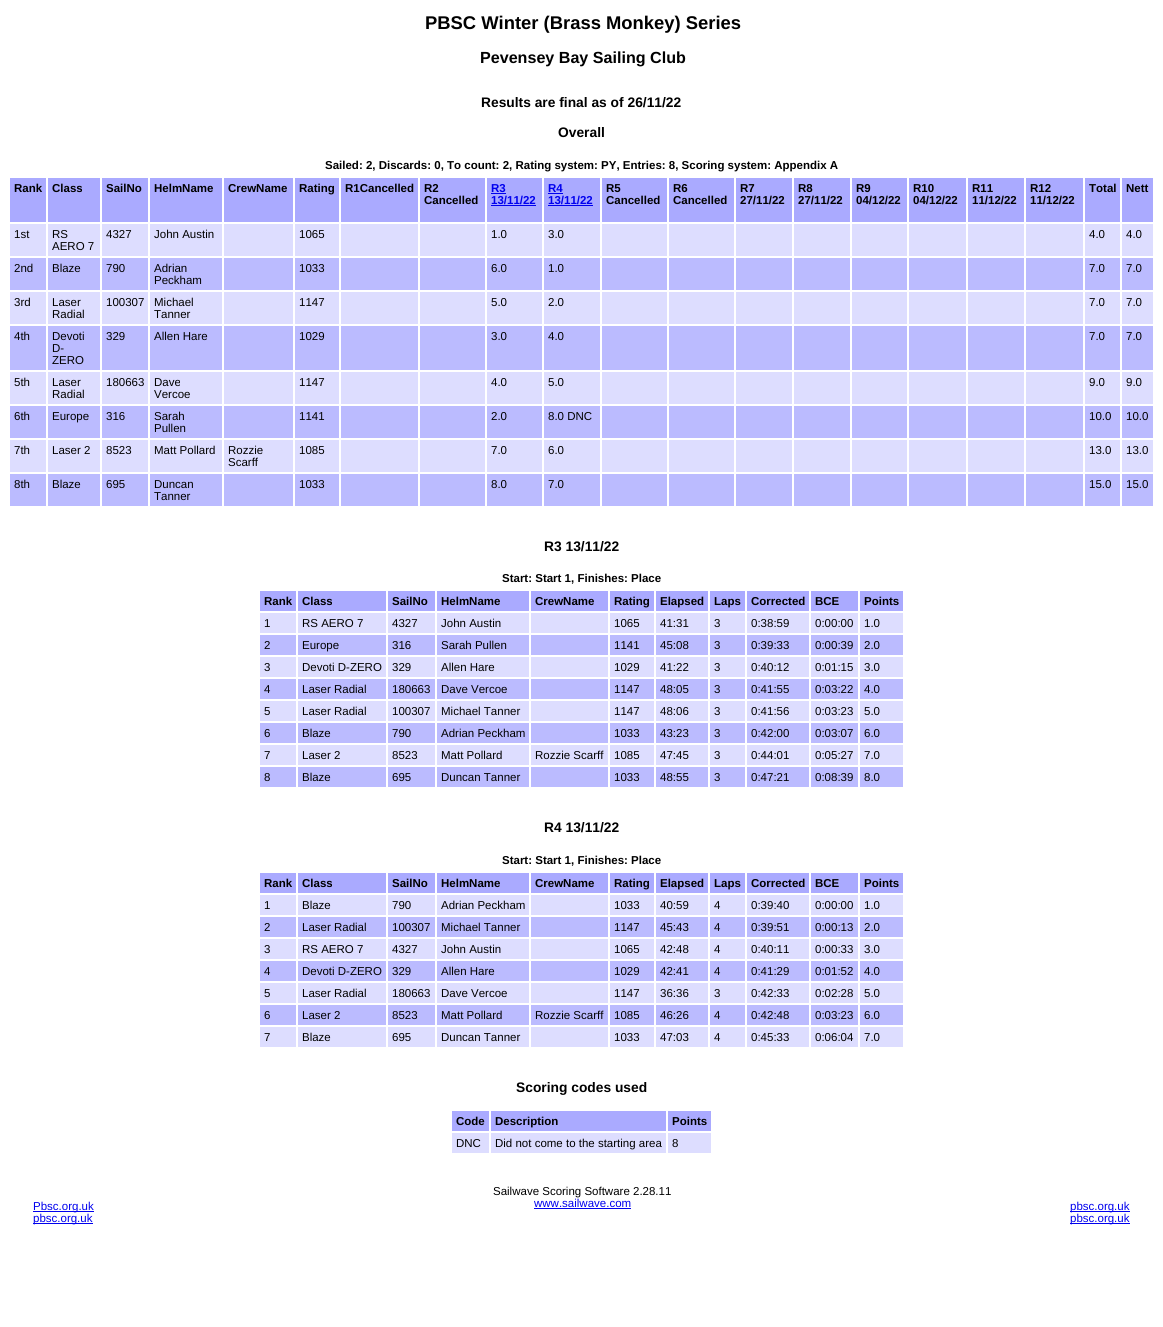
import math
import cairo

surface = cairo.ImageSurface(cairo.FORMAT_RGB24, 1163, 1327)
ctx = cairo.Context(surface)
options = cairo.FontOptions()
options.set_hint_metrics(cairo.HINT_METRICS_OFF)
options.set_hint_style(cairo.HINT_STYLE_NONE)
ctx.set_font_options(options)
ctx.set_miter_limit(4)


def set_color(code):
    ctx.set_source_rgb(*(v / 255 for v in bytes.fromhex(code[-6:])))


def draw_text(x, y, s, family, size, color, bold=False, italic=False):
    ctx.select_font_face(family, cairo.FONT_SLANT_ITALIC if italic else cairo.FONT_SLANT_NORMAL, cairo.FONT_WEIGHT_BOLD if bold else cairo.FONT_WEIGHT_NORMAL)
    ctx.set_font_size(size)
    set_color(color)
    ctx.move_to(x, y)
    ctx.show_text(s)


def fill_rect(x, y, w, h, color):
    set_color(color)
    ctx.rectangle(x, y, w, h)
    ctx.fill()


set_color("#ffffff")
ctx.paint()
draw_text(425, 29, "PBSC Winter (Brass Monkey) Series", "Liberation Sans", 18.4, "#000000", bold=True)
draw_text(480, 63, "Pevensey Bay Sailing Club", "Liberation Sans", 16.1, "#000000", bold=True)
draw_text(481, 107, "Results are final as of 26/11/22", "Liberation Sans", 13.8, "#000000", bold=True)
draw_text(558, 137, "Overall", "Liberation Sans", 13.8, "#000000", bold=True)
draw_text(325, 169, "Sailed: 2, Discards: 0, To count: 2, Rating system: PY, Entries: 8, Scoring system: Appendix A", "Liberation Sans", 11.5, "#000000", bold=True)
fill_rect(10, 178, 36, 44, "#aaaaff")
draw_text(14, 192, "Rank", "Liberation Sans", 11.5, "#000000", bold=True)
fill_rect(48, 178, 52, 44, "#aaaaff")
draw_text(52, 192, "Class", "Liberation Sans", 11.5, "#000000", bold=True)
fill_rect(102, 178, 46, 44, "#aaaaff")
draw_text(106, 192, "SailNo", "Liberation Sans", 11.5, "#000000", bold=True)
fill_rect(150, 178, 72, 44, "#aaaaff")
draw_text(154, 192, "HelmName", "Liberation Sans", 11.5, "#000000", bold=True)
fill_rect(224, 178, 69, 44, "#aaaaff")
draw_text(228, 192, "CrewName", "Liberation Sans", 11.5, "#000000", bold=True)
fill_rect(295, 178, 44, 44, "#aaaaff")
draw_text(299, 192, "Rating", "Liberation Sans", 11.5, "#000000", bold=True)
fill_rect(341, 178, 77, 44, "#aaaaff")
draw_text(345, 192, "R1Cancelled", "Liberation Sans", 11.5, "#000000", bold=True)
fill_rect(420, 178, 65, 44, "#aaaaff")
draw_text(424, 192, "R2", "Liberation Sans", 11.5, "#000000", bold=True)
draw_text(424, 204, "Cancelled", "Liberation Sans", 11.5, "#000000", bold=True)
fill_rect(487, 178, 55, 44, "#aaaaff")
draw_text(491, 192, "R3", "Liberation Sans", 11.5, "#0000ee", bold=True)
fill_rect(491, 193, 15, 1, "#0000ee")
draw_text(491, 204, "13/11/22", "Liberation Sans", 11.5, "#0000ee", bold=True)
fill_rect(491, 205, 45, 1, "#0000ee")
fill_rect(544, 178, 56, 44, "#aaaaff")
draw_text(548, 192, "R4", "Liberation Sans", 11.5, "#0000ee", bold=True)
fill_rect(548, 193, 15, 1, "#0000ee")
draw_text(548, 204, "13/11/22", "Liberation Sans", 11.5, "#0000ee", bold=True)
fill_rect(548, 205, 45, 1, "#0000ee")
fill_rect(602, 178, 65, 44, "#aaaaff")
draw_text(606, 192, "R5", "Liberation Sans", 11.5, "#000000", bold=True)
draw_text(606, 204, "Cancelled", "Liberation Sans", 11.5, "#000000", bold=True)
fill_rect(669, 178, 65, 44, "#aaaaff")
draw_text(673, 192, "R6", "Liberation Sans", 11.5, "#000000", bold=True)
draw_text(673, 204, "Cancelled", "Liberation Sans", 11.5, "#000000", bold=True)
fill_rect(736, 178, 56, 44, "#aaaaff")
draw_text(740, 192, "R7", "Liberation Sans", 11.5, "#000000", bold=True)
draw_text(740, 204, "27/11/22", "Liberation Sans", 11.5, "#000000", bold=True)
fill_rect(794, 178, 56, 44, "#aaaaff")
draw_text(798, 192, "R8", "Liberation Sans", 11.5, "#000000", bold=True)
draw_text(798, 204, "27/11/22", "Liberation Sans", 11.5, "#000000", bold=True)
fill_rect(852, 178, 55, 44, "#aaaaff")
draw_text(856, 192, "R9", "Liberation Sans", 11.5, "#000000", bold=True)
draw_text(856, 204, "04/12/22", "Liberation Sans", 11.5, "#000000", bold=True)
fill_rect(909, 178, 57, 44, "#aaaaff")
draw_text(913, 192, "R10", "Liberation Sans", 11.5, "#000000", bold=True)
draw_text(913, 204, "04/12/22", "Liberation Sans", 11.5, "#000000", bold=True)
fill_rect(968, 178, 56, 44, "#aaaaff")
draw_text(972, 192, "R11", "Liberation Sans", 11.5, "#000000", bold=True)
draw_text(972, 204, "11/12/22", "Liberation Sans", 11.5, "#000000", bold=True)
fill_rect(1026, 178, 57, 44, "#aaaaff")
draw_text(1030, 192, "R12", "Liberation Sans", 11.5, "#000000", bold=True)
draw_text(1030, 204, "11/12/22", "Liberation Sans", 11.5, "#000000", bold=True)
fill_rect(1085, 178, 35, 44, "#aaaaff")
draw_text(1089, 192, "Total", "Liberation Sans", 11.5, "#000000", bold=True)
fill_rect(1122, 178, 31, 44, "#aaaaff")
draw_text(1126, 192, "Nett", "Liberation Sans", 11.5, "#000000", bold=True)
fill_rect(10, 224, 1143, 32, "#ddddff")
draw_text(14, 238, "1st", "Liberation Sans", 11.5, "#000000")
draw_text(52, 238, "RS", "Liberation Sans", 11.5, "#000000")
draw_text(52, 250, "AERO 7", "Liberation Sans", 11.5, "#000000")
draw_text(106, 238, "4327", "Liberation Sans", 11.5, "#000000")
draw_text(154, 238, "John Austin", "Liberation Sans", 11.5, "#000000")
draw_text(299, 238, "1065", "Liberation Sans", 11.5, "#000000")
draw_text(491, 238, "1.0", "Liberation Sans", 11.5, "#000000")
draw_text(548, 238, "3.0", "Liberation Sans", 11.5, "#000000")
draw_text(1089, 238, "4.0", "Liberation Sans", 11.5, "#000000")
draw_text(1126, 238, "4.0", "Liberation Sans", 11.5, "#000000")
fill_rect(10, 258, 1143, 32, "#bbbbff")
draw_text(14, 272, "2nd", "Liberation Sans", 11.5, "#000000")
draw_text(52, 272, "Blaze", "Liberation Sans", 11.5, "#000000")
draw_text(106, 272, "790", "Liberation Sans", 11.5, "#000000")
draw_text(154, 272, "Adrian", "Liberation Sans", 11.5, "#000000")
draw_text(154, 284, "Peckham", "Liberation Sans", 11.5, "#000000")
draw_text(299, 272, "1033", "Liberation Sans", 11.5, "#000000")
draw_text(491, 272, "6.0", "Liberation Sans", 11.5, "#000000")
draw_text(548, 272, "1.0", "Liberation Sans", 11.5, "#000000")
draw_text(1089, 272, "7.0", "Liberation Sans", 11.5, "#000000")
draw_text(1126, 272, "7.0", "Liberation Sans", 11.5, "#000000")
fill_rect(10, 292, 1143, 32, "#ddddff")
draw_text(14, 306, "3rd", "Liberation Sans", 11.5, "#000000")
draw_text(52, 306, "Laser", "Liberation Sans", 11.5, "#000000")
draw_text(52, 318, "Radial", "Liberation Sans", 11.5, "#000000")
draw_text(106, 306, "100307", "Liberation Sans", 11.5, "#000000")
draw_text(154, 306, "Michael", "Liberation Sans", 11.5, "#000000")
draw_text(154, 318, "Tanner", "Liberation Sans", 11.5, "#000000")
draw_text(299, 306, "1147", "Liberation Sans", 11.5, "#000000")
draw_text(491, 306, "5.0", "Liberation Sans", 11.5, "#000000")
draw_text(548, 306, "2.0", "Liberation Sans", 11.5, "#000000")
draw_text(1089, 306, "7.0", "Liberation Sans", 11.5, "#000000")
draw_text(1126, 306, "7.0", "Liberation Sans", 11.5, "#000000")
fill_rect(10, 326, 1143, 44, "#bbbbff")
draw_text(14, 340, "4th", "Liberation Sans", 11.5, "#000000")
draw_text(52, 340, "Devoti", "Liberation Sans", 11.5, "#000000")
draw_text(52, 352, "D-", "Liberation Sans", 11.5, "#000000")
draw_text(52, 364, "ZERO", "Liberation Sans", 11.5, "#000000")
draw_text(106, 340, "329", "Liberation Sans", 11.5, "#000000")
draw_text(154, 340, "Allen Hare", "Liberation Sans", 11.5, "#000000")
draw_text(299, 340, "1029", "Liberation Sans", 11.5, "#000000")
draw_text(491, 340, "3.0", "Liberation Sans", 11.5, "#000000")
draw_text(548, 340, "4.0", "Liberation Sans", 11.5, "#000000")
draw_text(1089, 340, "7.0", "Liberation Sans", 11.5, "#000000")
draw_text(1126, 340, "7.0", "Liberation Sans", 11.5, "#000000")
fill_rect(10, 372, 1143, 32, "#ddddff")
draw_text(14, 386, "5th", "Liberation Sans", 11.5, "#000000")
draw_text(52, 386, "Laser", "Liberation Sans", 11.5, "#000000")
draw_text(52, 398, "Radial", "Liberation Sans", 11.5, "#000000")
draw_text(106, 386, "180663", "Liberation Sans", 11.5, "#000000")
draw_text(154, 386, "Dave", "Liberation Sans", 11.5, "#000000")
draw_text(154, 398, "Vercoe", "Liberation Sans", 11.5, "#000000")
draw_text(299, 386, "1147", "Liberation Sans", 11.5, "#000000")
draw_text(491, 386, "4.0", "Liberation Sans", 11.5, "#000000")
draw_text(548, 386, "5.0", "Liberation Sans", 11.5, "#000000")
draw_text(1089, 386, "9.0", "Liberation Sans", 11.5, "#000000")
draw_text(1126, 386, "9.0", "Liberation Sans", 11.5, "#000000")
fill_rect(10, 406, 1143, 32, "#bbbbff")
draw_text(14, 420, "6th", "Liberation Sans", 11.5, "#000000")
draw_text(52, 420, "Europe", "Liberation Sans", 11.5, "#000000")
draw_text(106, 420, "316", "Liberation Sans", 11.5, "#000000")
draw_text(154, 420, "Sarah", "Liberation Sans", 11.5, "#000000")
draw_text(154, 432, "Pullen", "Liberation Sans", 11.5, "#000000")
draw_text(299, 420, "1141", "Liberation Sans", 11.5, "#000000")
draw_text(491, 420, "2.0", "Liberation Sans", 11.5, "#000000")
draw_text(548, 420, "8.0 DNC", "Liberation Sans", 11.5, "#000000")
draw_text(1089, 420, "10.0", "Liberation Sans", 11.5, "#000000")
draw_text(1126, 420, "10.0", "Liberation Sans", 11.5, "#000000")
fill_rect(10, 440, 1143, 32, "#ddddff")
draw_text(14, 454, "7th", "Liberation Sans", 11.5, "#000000")
draw_text(52, 454, "Laser 2", "Liberation Sans", 11.5, "#000000")
draw_text(106, 454, "8523", "Liberation Sans", 11.5, "#000000")
draw_text(154, 454, "Matt Pollard", "Liberation Sans", 11.5, "#000000")
draw_text(228, 454, "Rozzie", "Liberation Sans", 11.5, "#000000")
draw_text(228, 466, "Scarff", "Liberation Sans", 11.5, "#000000")
draw_text(299, 454, "1085", "Liberation Sans", 11.5, "#000000")
draw_text(491, 454, "7.0", "Liberation Sans", 11.5, "#000000")
draw_text(548, 454, "6.0", "Liberation Sans", 11.5, "#000000")
draw_text(1089, 454, "13.0", "Liberation Sans", 11.5, "#000000")
draw_text(1126, 454, "13.0", "Liberation Sans", 11.5, "#000000")
fill_rect(10, 474, 1143, 32, "#bbbbff")
draw_text(14, 488, "8th", "Liberation Sans", 11.5, "#000000")
fill_rect(46, 222, 2, 286, "#ffffff")
draw_text(52, 488, "Blaze", "Liberation Sans", 11.5, "#000000")
fill_rect(100, 222, 2, 286, "#ffffff")
draw_text(106, 488, "695", "Liberation Sans", 11.5, "#000000")
fill_rect(148, 222, 2, 286, "#ffffff")
draw_text(154, 488, "Duncan", "Liberation Sans", 11.5, "#000000")
draw_text(154, 500, "Tanner", "Liberation Sans", 11.5, "#000000")
fill_rect(222, 222, 2, 286, "#ffffff")
fill_rect(293, 222, 2, 286, "#ffffff")
draw_text(299, 488, "1033", "Liberation Sans", 11.5, "#000000")
fill_rect(339, 222, 2, 286, "#ffffff")
fill_rect(418, 222, 2, 286, "#ffffff")
fill_rect(485, 222, 2, 286, "#ffffff")
draw_text(491, 488, "8.0", "Liberation Sans", 11.5, "#000000")
fill_rect(542, 222, 2, 286, "#ffffff")
draw_text(548, 488, "7.0", "Liberation Sans", 11.5, "#000000")
fill_rect(600, 222, 2, 286, "#ffffff")
fill_rect(667, 222, 2, 286, "#ffffff")
fill_rect(734, 222, 2, 286, "#ffffff")
fill_rect(792, 222, 2, 286, "#ffffff")
fill_rect(850, 222, 2, 286, "#ffffff")
fill_rect(907, 222, 2, 286, "#ffffff")
fill_rect(966, 222, 2, 286, "#ffffff")
fill_rect(1024, 222, 2, 286, "#ffffff")
fill_rect(1083, 222, 2, 286, "#ffffff")
draw_text(1089, 488, "15.0", "Liberation Sans", 11.5, "#000000")
fill_rect(1120, 222, 2, 286, "#ffffff")
draw_text(1126, 488, "15.0", "Liberation Sans", 11.5, "#000000")
draw_text(544, 551, "R3 13/11/22", "Liberation Sans", 13.8, "#000000", bold=True)
draw_text(502, 582, "Start: Start 1, Finishes: Place", "Liberation Sans", 11.5, "#000000", bold=True)
fill_rect(260, 591, 36, 20, "#aaaaff")
draw_text(264, 605, "Rank", "Liberation Sans", 11.5, "#000000", bold=True)
fill_rect(298, 591, 88, 20, "#aaaaff")
draw_text(302, 605, "Class", "Liberation Sans", 11.5, "#000000", bold=True)
fill_rect(388, 591, 47, 20, "#aaaaff")
draw_text(392, 605, "SailNo", "Liberation Sans", 11.5, "#000000", bold=True)
fill_rect(437, 591, 92, 20, "#aaaaff")
draw_text(441, 605, "HelmName", "Liberation Sans", 11.5, "#000000", bold=True)
fill_rect(531, 591, 77, 20, "#aaaaff")
draw_text(535, 605, "CrewName", "Liberation Sans", 11.5, "#000000", bold=True)
fill_rect(610, 591, 44, 20, "#aaaaff")
draw_text(614, 605, "Rating", "Liberation Sans", 11.5, "#000000", bold=True)
fill_rect(656, 591, 52, 20, "#aaaaff")
draw_text(660, 605, "Elapsed", "Liberation Sans", 11.5, "#000000", bold=True)
fill_rect(710, 591, 35, 20, "#aaaaff")
draw_text(714, 605, "Laps", "Liberation Sans", 11.5, "#000000", bold=True)
fill_rect(747, 591, 62, 20, "#aaaaff")
draw_text(751, 605, "Corrected", "Liberation Sans", 11.5, "#000000", bold=True)
fill_rect(811, 591, 47, 20, "#aaaaff")
draw_text(815, 605, "BCE", "Liberation Sans", 11.5, "#000000", bold=True)
fill_rect(860, 591, 43, 20, "#aaaaff")
draw_text(864, 605, "Points", "Liberation Sans", 11.5, "#000000", bold=True)
fill_rect(260, 613, 643, 20, "#ddddff")
draw_text(264, 627, "1", "Liberation Sans", 11.5, "#000000")
draw_text(302, 627, "RS AERO 7", "Liberation Sans", 11.5, "#000000")
draw_text(392, 627, "4327", "Liberation Sans", 11.5, "#000000")
draw_text(441, 627, "John Austin", "Liberation Sans", 11.5, "#000000")
draw_text(614, 627, "1065", "Liberation Sans", 11.5, "#000000")
draw_text(660, 627, "41:31", "Liberation Sans", 11.5, "#000000")
draw_text(714, 627, "3", "Liberation Sans", 11.5, "#000000")
draw_text(751, 627, "0:38:59", "Liberation Sans", 11.5, "#000000")
draw_text(815, 627, "0:00:00", "Liberation Sans", 11.5, "#000000")
draw_text(864, 627, "1.0", "Liberation Sans", 11.5, "#000000")
fill_rect(260, 635, 643, 20, "#bbbbff")
draw_text(264, 649, "2", "Liberation Sans", 11.5, "#000000")
draw_text(302, 649, "Europe", "Liberation Sans", 11.5, "#000000")
draw_text(392, 649, "316", "Liberation Sans", 11.5, "#000000")
draw_text(441, 649, "Sarah Pullen", "Liberation Sans", 11.5, "#000000")
draw_text(614, 649, "1141", "Liberation Sans", 11.5, "#000000")
draw_text(660, 649, "45:08", "Liberation Sans", 11.5, "#000000")
draw_text(714, 649, "3", "Liberation Sans", 11.5, "#000000")
draw_text(751, 649, "0:39:33", "Liberation Sans", 11.5, "#000000")
draw_text(815, 649, "0:00:39", "Liberation Sans", 11.5, "#000000")
draw_text(864, 649, "2.0", "Liberation Sans", 11.5, "#000000")
fill_rect(260, 657, 643, 20, "#ddddff")
draw_text(264, 671, "3", "Liberation Sans", 11.5, "#000000")
draw_text(302, 671, "Devoti D-ZERO", "Liberation Sans", 11.5, "#000000")
draw_text(392, 671, "329", "Liberation Sans", 11.5, "#000000")
draw_text(441, 671, "Allen Hare", "Liberation Sans", 11.5, "#000000")
draw_text(614, 671, "1029", "Liberation Sans", 11.5, "#000000")
draw_text(660, 671, "41:22", "Liberation Sans", 11.5, "#000000")
draw_text(714, 671, "3", "Liberation Sans", 11.5, "#000000")
draw_text(751, 671, "0:40:12", "Liberation Sans", 11.5, "#000000")
draw_text(815, 671, "0:01:15", "Liberation Sans", 11.5, "#000000")
draw_text(864, 671, "3.0", "Liberation Sans", 11.5, "#000000")
fill_rect(260, 679, 643, 20, "#bbbbff")
draw_text(264, 693, "4", "Liberation Sans", 11.5, "#000000")
draw_text(302, 693, "Laser Radial", "Liberation Sans", 11.5, "#000000")
draw_text(392, 693, "180663", "Liberation Sans", 11.5, "#000000")
draw_text(441, 693, "Dave Vercoe", "Liberation Sans", 11.5, "#000000")
draw_text(614, 693, "1147", "Liberation Sans", 11.5, "#000000")
draw_text(660, 693, "48:05", "Liberation Sans", 11.5, "#000000")
draw_text(714, 693, "3", "Liberation Sans", 11.5, "#000000")
draw_text(751, 693, "0:41:55", "Liberation Sans", 11.5, "#000000")
draw_text(815, 693, "0:03:22", "Liberation Sans", 11.5, "#000000")
draw_text(864, 693, "4.0", "Liberation Sans", 11.5, "#000000")
fill_rect(260, 701, 643, 20, "#ddddff")
draw_text(264, 715, "5", "Liberation Sans", 11.5, "#000000")
draw_text(302, 715, "Laser Radial", "Liberation Sans", 11.5, "#000000")
draw_text(392, 715, "100307", "Liberation Sans", 11.5, "#000000")
draw_text(441, 715, "Michael Tanner", "Liberation Sans", 11.5, "#000000")
draw_text(614, 715, "1147", "Liberation Sans", 11.5, "#000000")
draw_text(660, 715, "48:06", "Liberation Sans", 11.5, "#000000")
draw_text(714, 715, "3", "Liberation Sans", 11.5, "#000000")
draw_text(751, 715, "0:41:56", "Liberation Sans", 11.5, "#000000")
draw_text(815, 715, "0:03:23", "Liberation Sans", 11.5, "#000000")
draw_text(864, 715, "5.0", "Liberation Sans", 11.5, "#000000")
fill_rect(260, 723, 643, 20, "#bbbbff")
draw_text(264, 737, "6", "Liberation Sans", 11.5, "#000000")
draw_text(302, 737, "Blaze", "Liberation Sans", 11.5, "#000000")
draw_text(392, 737, "790", "Liberation Sans", 11.5, "#000000")
draw_text(441, 737, "Adrian Peckham", "Liberation Sans", 11.5, "#000000")
draw_text(614, 737, "1033", "Liberation Sans", 11.5, "#000000")
draw_text(660, 737, "43:23", "Liberation Sans", 11.5, "#000000")
draw_text(714, 737, "3", "Liberation Sans", 11.5, "#000000")
draw_text(751, 737, "0:42:00", "Liberation Sans", 11.5, "#000000")
draw_text(815, 737, "0:03:07", "Liberation Sans", 11.5, "#000000")
draw_text(864, 737, "6.0", "Liberation Sans", 11.5, "#000000")
fill_rect(260, 745, 643, 20, "#ddddff")
draw_text(264, 759, "7", "Liberation Sans", 11.5, "#000000")
draw_text(302, 759, "Laser 2", "Liberation Sans", 11.5, "#000000")
draw_text(392, 759, "8523", "Liberation Sans", 11.5, "#000000")
draw_text(441, 759, "Matt Pollard", "Liberation Sans", 11.5, "#000000")
draw_text(535, 759, "Rozzie Scarff", "Liberation Sans", 11.5, "#000000")
draw_text(614, 759, "1085", "Liberation Sans", 11.5, "#000000")
draw_text(660, 759, "47:45", "Liberation Sans", 11.5, "#000000")
draw_text(714, 759, "3", "Liberation Sans", 11.5, "#000000")
draw_text(751, 759, "0:44:01", "Liberation Sans", 11.5, "#000000")
draw_text(815, 759, "0:05:27", "Liberation Sans", 11.5, "#000000")
draw_text(864, 759, "7.0", "Liberation Sans", 11.5, "#000000")
fill_rect(260, 767, 643, 20, "#bbbbff")
draw_text(264, 781, "8", "Liberation Sans", 11.5, "#000000")
fill_rect(296, 611, 2, 178, "#ffffff")
draw_text(302, 781, "Blaze", "Liberation Sans", 11.5, "#000000")
fill_rect(386, 611, 2, 178, "#ffffff")
draw_text(392, 781, "695", "Liberation Sans", 11.5, "#000000")
fill_rect(435, 611, 2, 178, "#ffffff")
draw_text(441, 781, "Duncan Tanner", "Liberation Sans", 11.5, "#000000")
fill_rect(529, 611, 2, 178, "#ffffff")
fill_rect(608, 611, 2, 178, "#ffffff")
draw_text(614, 781, "1033", "Liberation Sans", 11.5, "#000000")
fill_rect(654, 611, 2, 178, "#ffffff")
draw_text(660, 781, "48:55", "Liberation Sans", 11.5, "#000000")
fill_rect(708, 611, 2, 178, "#ffffff")
draw_text(714, 781, "3", "Liberation Sans", 11.5, "#000000")
fill_rect(745, 611, 2, 178, "#ffffff")
draw_text(751, 781, "0:47:21", "Liberation Sans", 11.5, "#000000")
fill_rect(809, 611, 2, 178, "#ffffff")
draw_text(815, 781, "0:08:39", "Liberation Sans", 11.5, "#000000")
fill_rect(858, 611, 2, 178, "#ffffff")
draw_text(864, 781, "8.0", "Liberation Sans", 11.5, "#000000")
draw_text(544, 832, "R4 13/11/22", "Liberation Sans", 13.8, "#000000", bold=True)
draw_text(502, 864, "Start: Start 1, Finishes: Place", "Liberation Sans", 11.5, "#000000", bold=True)
fill_rect(260, 873, 36, 20, "#aaaaff")
draw_text(264, 887, "Rank", "Liberation Sans", 11.5, "#000000", bold=True)
fill_rect(298, 873, 88, 20, "#aaaaff")
draw_text(302, 887, "Class", "Liberation Sans", 11.5, "#000000", bold=True)
fill_rect(388, 873, 47, 20, "#aaaaff")
draw_text(392, 887, "SailNo", "Liberation Sans", 11.5, "#000000", bold=True)
fill_rect(437, 873, 92, 20, "#aaaaff")
draw_text(441, 887, "HelmName", "Liberation Sans", 11.5, "#000000", bold=True)
fill_rect(531, 873, 77, 20, "#aaaaff")
draw_text(535, 887, "CrewName", "Liberation Sans", 11.5, "#000000", bold=True)
fill_rect(610, 873, 44, 20, "#aaaaff")
draw_text(614, 887, "Rating", "Liberation Sans", 11.5, "#000000", bold=True)
fill_rect(656, 873, 52, 20, "#aaaaff")
draw_text(660, 887, "Elapsed", "Liberation Sans", 11.5, "#000000", bold=True)
fill_rect(710, 873, 35, 20, "#aaaaff")
draw_text(714, 887, "Laps", "Liberation Sans", 11.5, "#000000", bold=True)
fill_rect(747, 873, 62, 20, "#aaaaff")
draw_text(751, 887, "Corrected", "Liberation Sans", 11.5, "#000000", bold=True)
fill_rect(811, 873, 47, 20, "#aaaaff")
draw_text(815, 887, "BCE", "Liberation Sans", 11.5, "#000000", bold=True)
fill_rect(860, 873, 43, 20, "#aaaaff")
draw_text(864, 887, "Points", "Liberation Sans", 11.5, "#000000", bold=True)
fill_rect(260, 895, 643, 20, "#ddddff")
draw_text(264, 909, "1", "Liberation Sans", 11.5, "#000000")
draw_text(302, 909, "Blaze", "Liberation Sans", 11.5, "#000000")
draw_text(392, 909, "790", "Liberation Sans", 11.5, "#000000")
draw_text(441, 909, "Adrian Peckham", "Liberation Sans", 11.5, "#000000")
draw_text(614, 909, "1033", "Liberation Sans", 11.5, "#000000")
draw_text(660, 909, "40:59", "Liberation Sans", 11.5, "#000000")
draw_text(714, 909, "4", "Liberation Sans", 11.5, "#000000")
draw_text(751, 909, "0:39:40", "Liberation Sans", 11.5, "#000000")
draw_text(815, 909, "0:00:00", "Liberation Sans", 11.5, "#000000")
draw_text(864, 909, "1.0", "Liberation Sans", 11.5, "#000000")
fill_rect(260, 917, 643, 20, "#bbbbff")
draw_text(264, 931, "2", "Liberation Sans", 11.5, "#000000")
draw_text(302, 931, "Laser Radial", "Liberation Sans", 11.5, "#000000")
draw_text(392, 931, "100307", "Liberation Sans", 11.5, "#000000")
draw_text(441, 931, "Michael Tanner", "Liberation Sans", 11.5, "#000000")
draw_text(614, 931, "1147", "Liberation Sans", 11.5, "#000000")
draw_text(660, 931, "45:43", "Liberation Sans", 11.5, "#000000")
draw_text(714, 931, "4", "Liberation Sans", 11.5, "#000000")
draw_text(751, 931, "0:39:51", "Liberation Sans", 11.5, "#000000")
draw_text(815, 931, "0:00:13", "Liberation Sans", 11.5, "#000000")
draw_text(864, 931, "2.0", "Liberation Sans", 11.5, "#000000")
fill_rect(260, 939, 643, 20, "#ddddff")
draw_text(264, 953, "3", "Liberation Sans", 11.5, "#000000")
draw_text(302, 953, "RS AERO 7", "Liberation Sans", 11.5, "#000000")
draw_text(392, 953, "4327", "Liberation Sans", 11.5, "#000000")
draw_text(441, 953, "John Austin", "Liberation Sans", 11.5, "#000000")
draw_text(614, 953, "1065", "Liberation Sans", 11.5, "#000000")
draw_text(660, 953, "42:48", "Liberation Sans", 11.5, "#000000")
draw_text(714, 953, "4", "Liberation Sans", 11.5, "#000000")
draw_text(751, 953, "0:40:11", "Liberation Sans", 11.5, "#000000")
draw_text(815, 953, "0:00:33", "Liberation Sans", 11.5, "#000000")
draw_text(864, 953, "3.0", "Liberation Sans", 11.5, "#000000")
fill_rect(260, 961, 643, 20, "#bbbbff")
draw_text(264, 975, "4", "Liberation Sans", 11.5, "#000000")
draw_text(302, 975, "Devoti D-ZERO", "Liberation Sans", 11.5, "#000000")
draw_text(392, 975, "329", "Liberation Sans", 11.5, "#000000")
draw_text(441, 975, "Allen Hare", "Liberation Sans", 11.5, "#000000")
draw_text(614, 975, "1029", "Liberation Sans", 11.5, "#000000")
draw_text(660, 975, "42:41", "Liberation Sans", 11.5, "#000000")
draw_text(714, 975, "4", "Liberation Sans", 11.5, "#000000")
draw_text(751, 975, "0:41:29", "Liberation Sans", 11.5, "#000000")
draw_text(815, 975, "0:01:52", "Liberation Sans", 11.5, "#000000")
draw_text(864, 975, "4.0", "Liberation Sans", 11.5, "#000000")
fill_rect(260, 983, 643, 20, "#ddddff")
draw_text(264, 997, "5", "Liberation Sans", 11.5, "#000000")
draw_text(302, 997, "Laser Radial", "Liberation Sans", 11.5, "#000000")
draw_text(392, 997, "180663", "Liberation Sans", 11.5, "#000000")
draw_text(441, 997, "Dave Vercoe", "Liberation Sans", 11.5, "#000000")
draw_text(614, 997, "1147", "Liberation Sans", 11.5, "#000000")
draw_text(660, 997, "36:36", "Liberation Sans", 11.5, "#000000")
draw_text(714, 997, "3", "Liberation Sans", 11.5, "#000000")
draw_text(751, 997, "0:42:33", "Liberation Sans", 11.5, "#000000")
draw_text(815, 997, "0:02:28", "Liberation Sans", 11.5, "#000000")
draw_text(864, 997, "5.0", "Liberation Sans", 11.5, "#000000")
fill_rect(260, 1005, 643, 20, "#bbbbff")
draw_text(264, 1019, "6", "Liberation Sans", 11.5, "#000000")
draw_text(302, 1019, "Laser 2", "Liberation Sans", 11.5, "#000000")
draw_text(392, 1019, "8523", "Liberation Sans", 11.5, "#000000")
draw_text(441, 1019, "Matt Pollard", "Liberation Sans", 11.5, "#000000")
draw_text(535, 1019, "Rozzie Scarff", "Liberation Sans", 11.5, "#000000")
draw_text(614, 1019, "1085", "Liberation Sans", 11.5, "#000000")
draw_text(660, 1019, "46:26", "Liberation Sans", 11.5, "#000000")
draw_text(714, 1019, "4", "Liberation Sans", 11.5, "#000000")
draw_text(751, 1019, "0:42:48", "Liberation Sans", 11.5, "#000000")
draw_text(815, 1019, "0:03:23", "Liberation Sans", 11.5, "#000000")
draw_text(864, 1019, "6.0", "Liberation Sans", 11.5, "#000000")
fill_rect(260, 1027, 643, 20, "#ddddff")
draw_text(264, 1041, "7", "Liberation Sans", 11.5, "#000000")
fill_rect(296, 893, 2, 156, "#ffffff")
draw_text(302, 1041, "Blaze", "Liberation Sans", 11.5, "#000000")
fill_rect(386, 893, 2, 156, "#ffffff")
draw_text(392, 1041, "695", "Liberation Sans", 11.5, "#000000")
fill_rect(435, 893, 2, 156, "#ffffff")
draw_text(441, 1041, "Duncan Tanner", "Liberation Sans", 11.5, "#000000")
fill_rect(529, 893, 2, 156, "#ffffff")
fill_rect(608, 893, 2, 156, "#ffffff")
draw_text(614, 1041, "1033", "Liberation Sans", 11.5, "#000000")
fill_rect(654, 893, 2, 156, "#ffffff")
draw_text(660, 1041, "47:03", "Liberation Sans", 11.5, "#000000")
fill_rect(708, 893, 2, 156, "#ffffff")
draw_text(714, 1041, "4", "Liberation Sans", 11.5, "#000000")
fill_rect(745, 893, 2, 156, "#ffffff")
draw_text(751, 1041, "0:45:33", "Liberation Sans", 11.5, "#000000")
fill_rect(809, 893, 2, 156, "#ffffff")
draw_text(815, 1041, "0:06:04", "Liberation Sans", 11.5, "#000000")
fill_rect(858, 893, 2, 156, "#ffffff")
draw_text(864, 1041, "7.0", "Liberation Sans", 11.5, "#000000")
draw_text(516, 1092, "Scoring codes used", "Liberation Sans", 13.8, "#000000", bold=True)
fill_rect(452, 1111, 37, 20, "#aaaaff")
draw_text(456, 1125, "Code", "Liberation Sans", 11.5, "#000000", bold=True)
fill_rect(491, 1111, 175, 20, "#aaaaff")
draw_text(495, 1125, "Description", "Liberation Sans", 11.5, "#000000", bold=True)
fill_rect(668, 1111, 43, 20, "#aaaaff")
draw_text(672, 1125, "Points", "Liberation Sans", 11.5, "#000000", bold=True)
fill_rect(452, 1133, 259, 20, "#ddddff")
draw_text(456, 1147, "DNC", "Liberation Sans", 11.5, "#000000")
fill_rect(489, 1131, 2, 24, "#ffffff")
draw_text(495, 1147, "Did not come to the starting area", "Liberation Sans", 11.5, "#000000")
fill_rect(666, 1131, 2, 24, "#ffffff")
draw_text(672, 1147, "8", "Liberation Sans", 11.5, "#000000")
draw_text(493, 1195, "Sailwave Scoring Software 2.28.11", "Liberation Sans", 11.5, "#000000")
draw_text(534, 1207, "www.sailwave.com", "Liberation Sans", 11.5, "#0000ee")
fill_rect(534, 1208, 97, 1, "#0000ee")
fill_rect(33, 1211, 61, 1, "#0000ee")
draw_text(33, 1210, "Pbsc.org.uk", "Liberation Sans", 11.5, "#0000ee")
fill_rect(33, 1223, 60, 1, "#0000ee")
draw_text(33, 1222, "pbsc.org.uk", "Liberation Sans", 11.5, "#0000ee")
fill_rect(1070, 1211, 60, 1, "#0000ee")
draw_text(1070, 1210, "pbsc.org.uk", "Liberation Sans", 11.5, "#0000ee")
fill_rect(1070, 1223, 60, 1, "#0000ee")
draw_text(1070, 1222, "pbsc.org.uk", "Liberation Sans", 11.5, "#0000ee")
surface.write_to_png("output.png")
